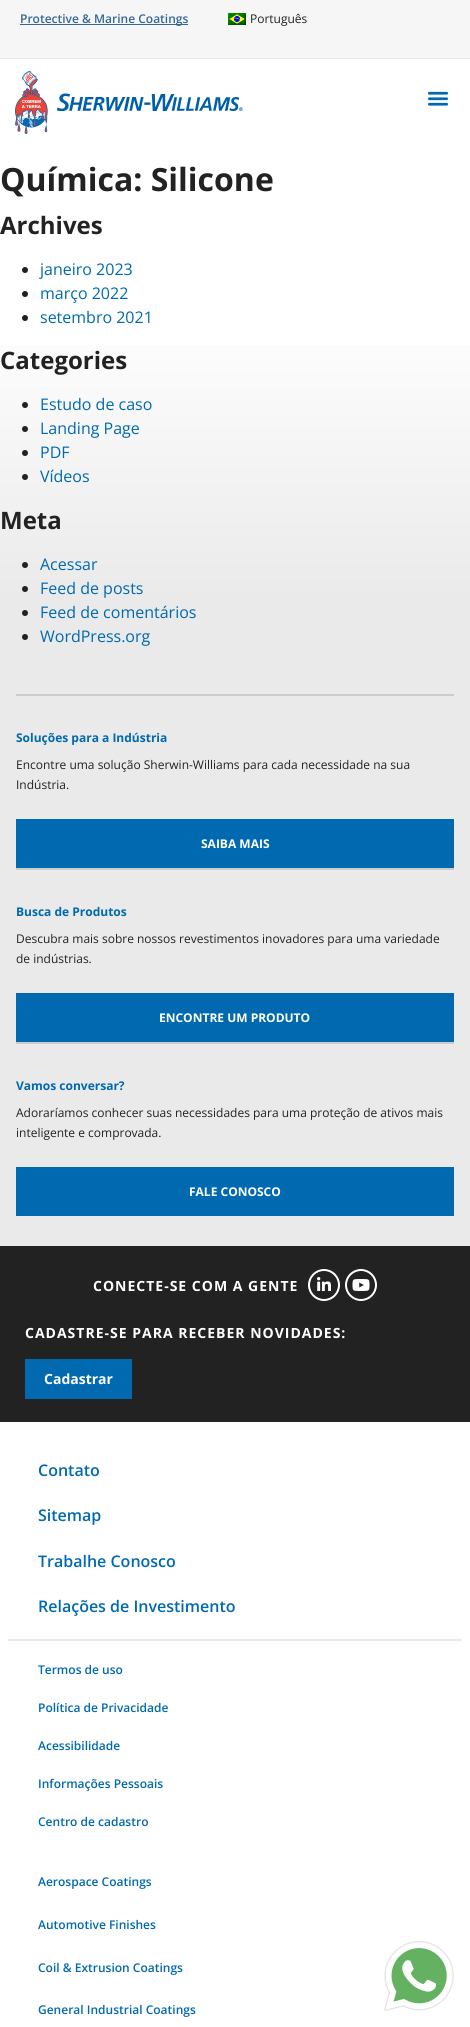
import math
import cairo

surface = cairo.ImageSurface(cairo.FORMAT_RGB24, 470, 2027)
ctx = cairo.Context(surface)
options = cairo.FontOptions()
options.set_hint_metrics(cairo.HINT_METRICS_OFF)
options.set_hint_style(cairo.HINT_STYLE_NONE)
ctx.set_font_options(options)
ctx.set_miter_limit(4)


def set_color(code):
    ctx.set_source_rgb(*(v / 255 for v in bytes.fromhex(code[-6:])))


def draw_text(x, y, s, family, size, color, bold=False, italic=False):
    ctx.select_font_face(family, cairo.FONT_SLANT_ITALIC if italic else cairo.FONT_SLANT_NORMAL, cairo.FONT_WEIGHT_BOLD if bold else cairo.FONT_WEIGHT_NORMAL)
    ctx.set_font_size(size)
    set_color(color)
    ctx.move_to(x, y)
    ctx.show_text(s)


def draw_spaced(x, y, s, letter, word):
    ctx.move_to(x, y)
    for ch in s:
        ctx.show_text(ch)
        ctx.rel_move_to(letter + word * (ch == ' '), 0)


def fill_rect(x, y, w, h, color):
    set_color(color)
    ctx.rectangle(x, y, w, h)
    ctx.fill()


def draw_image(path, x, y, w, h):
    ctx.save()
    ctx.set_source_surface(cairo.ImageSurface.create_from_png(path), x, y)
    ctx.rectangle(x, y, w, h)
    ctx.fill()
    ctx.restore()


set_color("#ffffff")
ctx.paint()
gradient = cairo.LinearGradient(235, 0, 235, 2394)
gradient.add_color_stop_rgba(0.06, 1, 1, 1, 1)
gradient.add_color_stop_rgba(0.13, 1, 1, 1, 1)
gradient.add_color_stop_rgba(0.25, 0.918, 0.918, 0.918, 1)
gradient.add_color_stop_rgba(1, 0.918, 0.918, 0.918, 1)
ctx.set_source(gradient)
ctx.rectangle(0, 345, 470, 901)
ctx.fill()
fill_rect(0, 0, 470, 58, "#f6f6f6")
fill_rect(0, 58, 470, 1, "#eaeaea")
fill_rect(20, 24, 168, 1, "#336699")
draw_text(20, 23, "Protective & Marine Coatings", "Open Sans SemiBold", 12, "#336699")
draw_image("assets/img1.png", 228, 13, 18, 12)
draw_text(250, 23, "Português", "Open Sans", 12, "#222222")
draw_image("assets/img2.png", 15, 71, 228, 63)
draw_image("assets/img3.png", 427, 91, 22, 15)
draw_text(0, 191, "Química: Silicone", "Open Sans", 32, "#222222", bold=True)
draw_text(0, 234, "Archives", "Open Sans", 24, "#222222", bold=True)
ctx.new_path()
ctx.arc(25, 270, 3, 0, 2 * math.pi)
ctx.fill()
draw_text(40, 275, "janeiro 2023", "Open Sans", 16, "#0069af")
set_color("#222222")
ctx.new_path()
ctx.arc(25, 294, 3, 0, 2 * math.pi)
ctx.fill()
draw_text(40, 299, "março 2022", "Open Sans", 16, "#0069af")
set_color("#222222")
ctx.new_path()
ctx.arc(25, 318, 3, 0, 2 * math.pi)
ctx.fill()
draw_text(40, 323, "setembro 2021", "Open Sans", 16, "#0069af")
draw_text(0, 369, "Categories", "Open Sans", 24, "#222222", bold=True)
ctx.new_path()
ctx.arc(25, 405, 3, 0, 2 * math.pi)
ctx.fill()
draw_text(40, 410, "Estudo de caso", "Open Sans", 16, "#0069af")
set_color("#222222")
ctx.new_path()
ctx.arc(25, 429, 3, 0, 2 * math.pi)
ctx.fill()
draw_text(40, 434, "Landing Page", "Open Sans", 16, "#0069af")
set_color("#222222")
ctx.new_path()
ctx.arc(25, 453, 3, 0, 2 * math.pi)
ctx.fill()
draw_text(40, 458, "PDF", "Open Sans", 16, "#0069af")
set_color("#222222")
ctx.new_path()
ctx.arc(25, 477, 3, 0, 2 * math.pi)
ctx.fill()
draw_text(40, 482, "Vídeos", "Open Sans", 16, "#0069af")
draw_text(0, 529, "Meta", "Open Sans", 24, "#222222", bold=True)
ctx.new_path()
ctx.arc(25, 565, 3, 0, 2 * math.pi)
ctx.fill()
draw_text(40, 570, "Acessar", "Open Sans", 16, "#0069af")
set_color("#222222")
ctx.new_path()
ctx.arc(25, 589, 3, 0, 2 * math.pi)
ctx.fill()
draw_text(40, 594, "Feed de posts", "Open Sans", 16, "#0069af")
set_color("#222222")
ctx.new_path()
ctx.arc(25, 613, 3, 0, 2 * math.pi)
ctx.fill()
draw_text(40, 618, "Feed de comentários", "Open Sans", 16, "#0069af")
set_color("#222222")
ctx.new_path()
ctx.arc(25, 637, 3, 0, 2 * math.pi)
ctx.fill()
draw_text(40, 642, "WordPress.org", "Open Sans", 16, "#0069af")
fill_rect(16, 694, 438, 2, "#cccccc")
draw_text(16, 742, "Soluções para a Indústria", "Open Sans", 12, "#0069af", bold=True)
draw_text(16, 769, "Encontre uma solução Sherwin-Williams para cada necessidade na sua", "Open Sans", 12, "#222222")
draw_text(16, 789, "Indústria.", "Open Sans", 12, "#222222")
fill_rect(16, 819, 438, 49, "#0069af")
draw_text(201, 848, "SAIBA MAIS", "Open Sans", 12, "#ffffff", bold=True)
fill_rect(16, 868, 438, 2, "#cccccc")
draw_text(16, 916, "Busca de Produtos", "Open Sans", 12, "#0069af", bold=True)
draw_text(16, 943, "Descubra mais sobre nossos revestimentos inovadores para uma variedade", "Open Sans", 12, "#222222")
draw_text(16, 963, "de indústrias.", "Open Sans", 12, "#222222")
fill_rect(16, 993, 438, 49, "#0069af")
draw_text(159, 1022, "ENCONTRE UM PRODUTO", "Open Sans", 12, "#ffffff", bold=True)
fill_rect(16, 1042, 438, 2, "#cccccc")
draw_text(16, 1090, "Vamos conversar?", "Open Sans", 12, "#0069af", bold=True)
draw_text(16, 1117, "Adoraríamos conhecer suas necessidades para uma proteção de ativos mais", "Open Sans", 12, "#222222")
draw_text(16, 1137, "inteligente e comprovada.", "Open Sans", 12, "#222222")
fill_rect(16, 1167, 438, 49, "#0069af")
draw_text(189, 1196, "FALE CONOSCO", "Open Sans", 12, "#ffffff", bold=True)
fill_rect(0, 1246, 470, 176, "#222222")
ctx.set_font_size(14)
set_color("#ffffff")
draw_spaced(93, 1291, "CONECTE-SE COM A GENTE", 1, 0)
ctx.new_path()
ctx.arc(324, 1285, 15, 0, 2 * math.pi)
ctx.stroke()
draw_image("assets/img4.png", 317, 1277, 14, 14)
ctx.arc(361, 1285, 15, 0, 2 * math.pi)
ctx.stroke()
draw_image("assets/img5.png", 352, 1279, 18, 12)
draw_spaced(25, 1338, "CADASTRE-SE PARA RECEBER NOVIDADES:", 1, 0)
fill_rect(25, 1359, 107, 40, "#0069af")
draw_text(44, 1384, "Cadastrar", "Open Sans", 14, "#ffffff", bold=True)
draw_text(38, 1476, "Contato", "Open Sans SemiBold", 16, "#0069af")
draw_text(38, 1521, "Sitemap", "Open Sans SemiBold", 16, "#0069af")
draw_text(38, 1567, "Trabalhe Conosco", "Open Sans SemiBold", 16, "#0069af")
draw_text(38, 1612, "Relações de Investimento", "Open Sans SemiBold", 16, "#0069af")
fill_rect(8, 1639, 454, 2, "#eaeaea")
draw_text(38, 1674, "Termos de uso", "Open Sans SemiBold", 12, "#0069af")
draw_text(38, 1712, "Política de Privacidade", "Open Sans SemiBold", 12, "#0069af")
draw_text(38, 1750, "Acessibilidade", "Open Sans SemiBold", 12, "#0069af")
draw_text(38, 1788, "Informações Pessoais", "Open Sans SemiBold", 12, "#0069af")
draw_text(38, 1826, "Centro de cadastro", "Open Sans SemiBold", 12, "#0069af")
draw_text(38, 1886, "Aerospace Coatings", "Open Sans SemiBold", 12, "#0069af")
draw_text(38, 1929, "Automotive Finishes", "Open Sans SemiBold", 12, "#0069af")
draw_text(38, 1972, "Coil & Extrusion Coatings", "Open Sans SemiBold", 12, "#0069af")
draw_text(38, 2014, "General Industrial Coatings", "Open Sans SemiBold", 12, "#0069af")
draw_image("assets/img6.png", 384, 1941, 70, 70)
surface.write_to_png("output.png")
